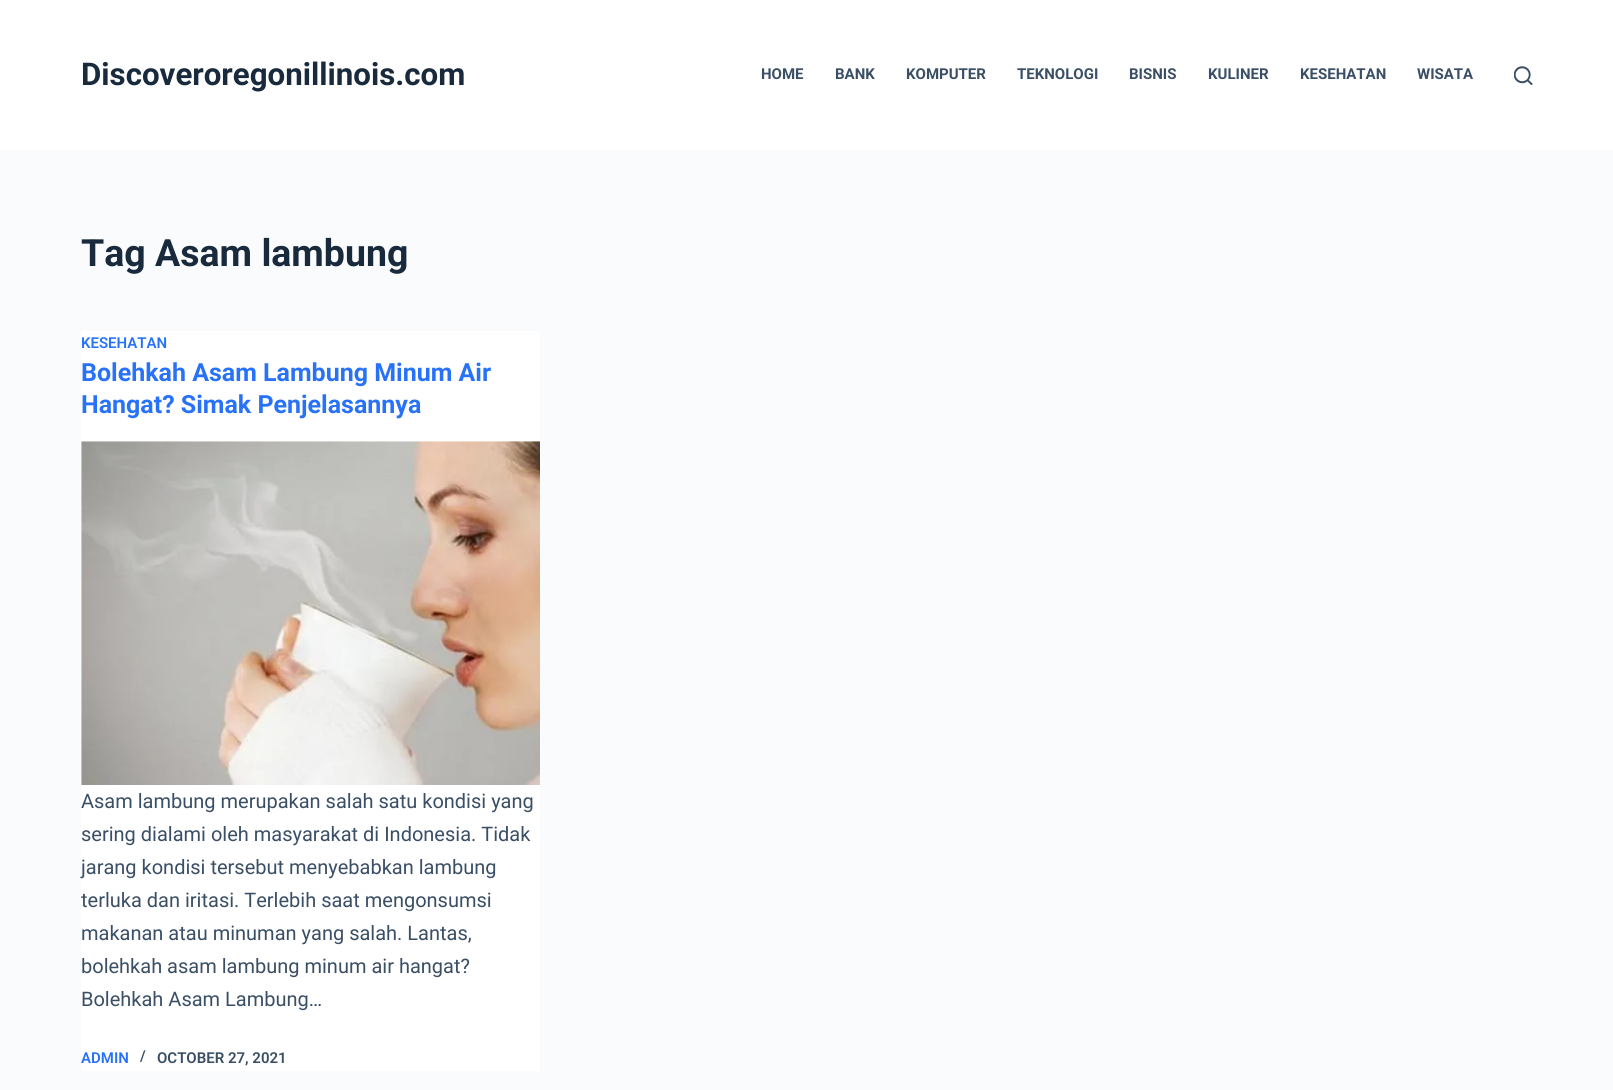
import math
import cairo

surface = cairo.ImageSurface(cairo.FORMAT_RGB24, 1613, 1090)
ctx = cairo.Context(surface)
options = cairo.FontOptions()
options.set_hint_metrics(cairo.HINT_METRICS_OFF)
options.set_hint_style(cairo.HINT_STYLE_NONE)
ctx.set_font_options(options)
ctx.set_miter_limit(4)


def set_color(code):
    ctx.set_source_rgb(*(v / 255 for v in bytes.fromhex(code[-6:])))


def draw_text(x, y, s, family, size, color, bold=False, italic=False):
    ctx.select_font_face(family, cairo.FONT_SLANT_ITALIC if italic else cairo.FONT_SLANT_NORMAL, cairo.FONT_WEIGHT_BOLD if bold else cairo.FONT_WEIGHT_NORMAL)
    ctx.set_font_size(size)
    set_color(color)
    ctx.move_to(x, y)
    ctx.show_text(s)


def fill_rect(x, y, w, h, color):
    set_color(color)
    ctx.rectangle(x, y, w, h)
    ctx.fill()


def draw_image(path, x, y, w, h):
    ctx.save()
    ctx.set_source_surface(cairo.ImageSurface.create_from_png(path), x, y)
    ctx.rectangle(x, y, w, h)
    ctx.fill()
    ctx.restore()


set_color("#fafbfc")
ctx.paint()
fill_rect(0, 0, 1613, 150, "#ffffff")
draw_text(81, 85, "Discoveroregonillinois.com", "Roboto", 31.25, "#192a3d", bold=True)
draw_text(761, 79, "HOME", "Roboto", 15, "#3a4f66", bold=True)
draw_text(835, 79, "BANK", "Roboto", 15, "#3a4f66", bold=True)
draw_text(906, 79, "KOMPUTER", "Roboto", 15, "#3a4f66", bold=True)
draw_text(1017, 79, "TEKNOLOGI", "Roboto", 15, "#3a4f66", bold=True)
draw_text(1129, 79, "BISNIS", "Roboto", 15, "#3a4f66", bold=True)
draw_text(1208, 79, "KULINER", "Roboto", 15, "#3a4f66", bold=True)
draw_text(1300, 79, "KESEHATAN", "Roboto", 15, "#3a4f66", bold=True)
draw_text(1417, 79, "WISATA", "Roboto", 15, "#3a4f66", bold=True)
draw_image("assets/img1.png", 1514, 66, 19, 19)
draw_text(81, 266, "Tag Asam lambung", "Roboto", 37.5, "#192a3d", bold=True)
fill_rect(81, 331, 459, 740, "#ffffff")
draw_text(81, 348, "KESEHATAN", "Roboto SemiBold", 15, "#2872fa")
draw_text(81, 381, "Bolehkah Asam Lambung Minum Air", "Roboto", 25, "#2872fa", bold=True)
draw_text(81, 413, "Hangat? Simak Penjelasannya", "Roboto", 25, "#2872fa", bold=True)
draw_image("assets/img2.png", 81, 441, 459, 344)
draw_text(81, 808, "Asam lambung merupakan salah satu kondisi yang", "Roboto", 20, "#3a4f66")
draw_text(81, 841, "sering dialami oleh masyarakat di Indonesia. Tidak", "Roboto", 20, "#3a4f66")
draw_text(81, 874, "jarang kondisi tersebut menyebabkan lambung", "Roboto", 20, "#3a4f66")
draw_text(81, 907, "terluka dan iritasi. Terlebih saat mengonsumsi", "Roboto", 20, "#3a4f66")
draw_text(81, 940, "makanan atau minuman yang salah. Lantas,", "Roboto", 20, "#3a4f66")
draw_text(81, 973, "bolehkah asam lambung minum air hangat?", "Roboto", 20, "#3a4f66")
draw_text(81, 1006, "Bolehkah Asam Lambung…", "Roboto", 20, "#3a4f66")
draw_text(81, 1063, "ADMIN", "Roboto SemiBold", 15, "#2872fa")
draw_text(140, 1061, "/", "Roboto SemiBold", 15, "#3a4f66")
draw_text(157, 1063, "OCTOBER 27, 2021", "Roboto SemiBold", 15, "#3a4f66")
surface.write_to_png("output.png")
